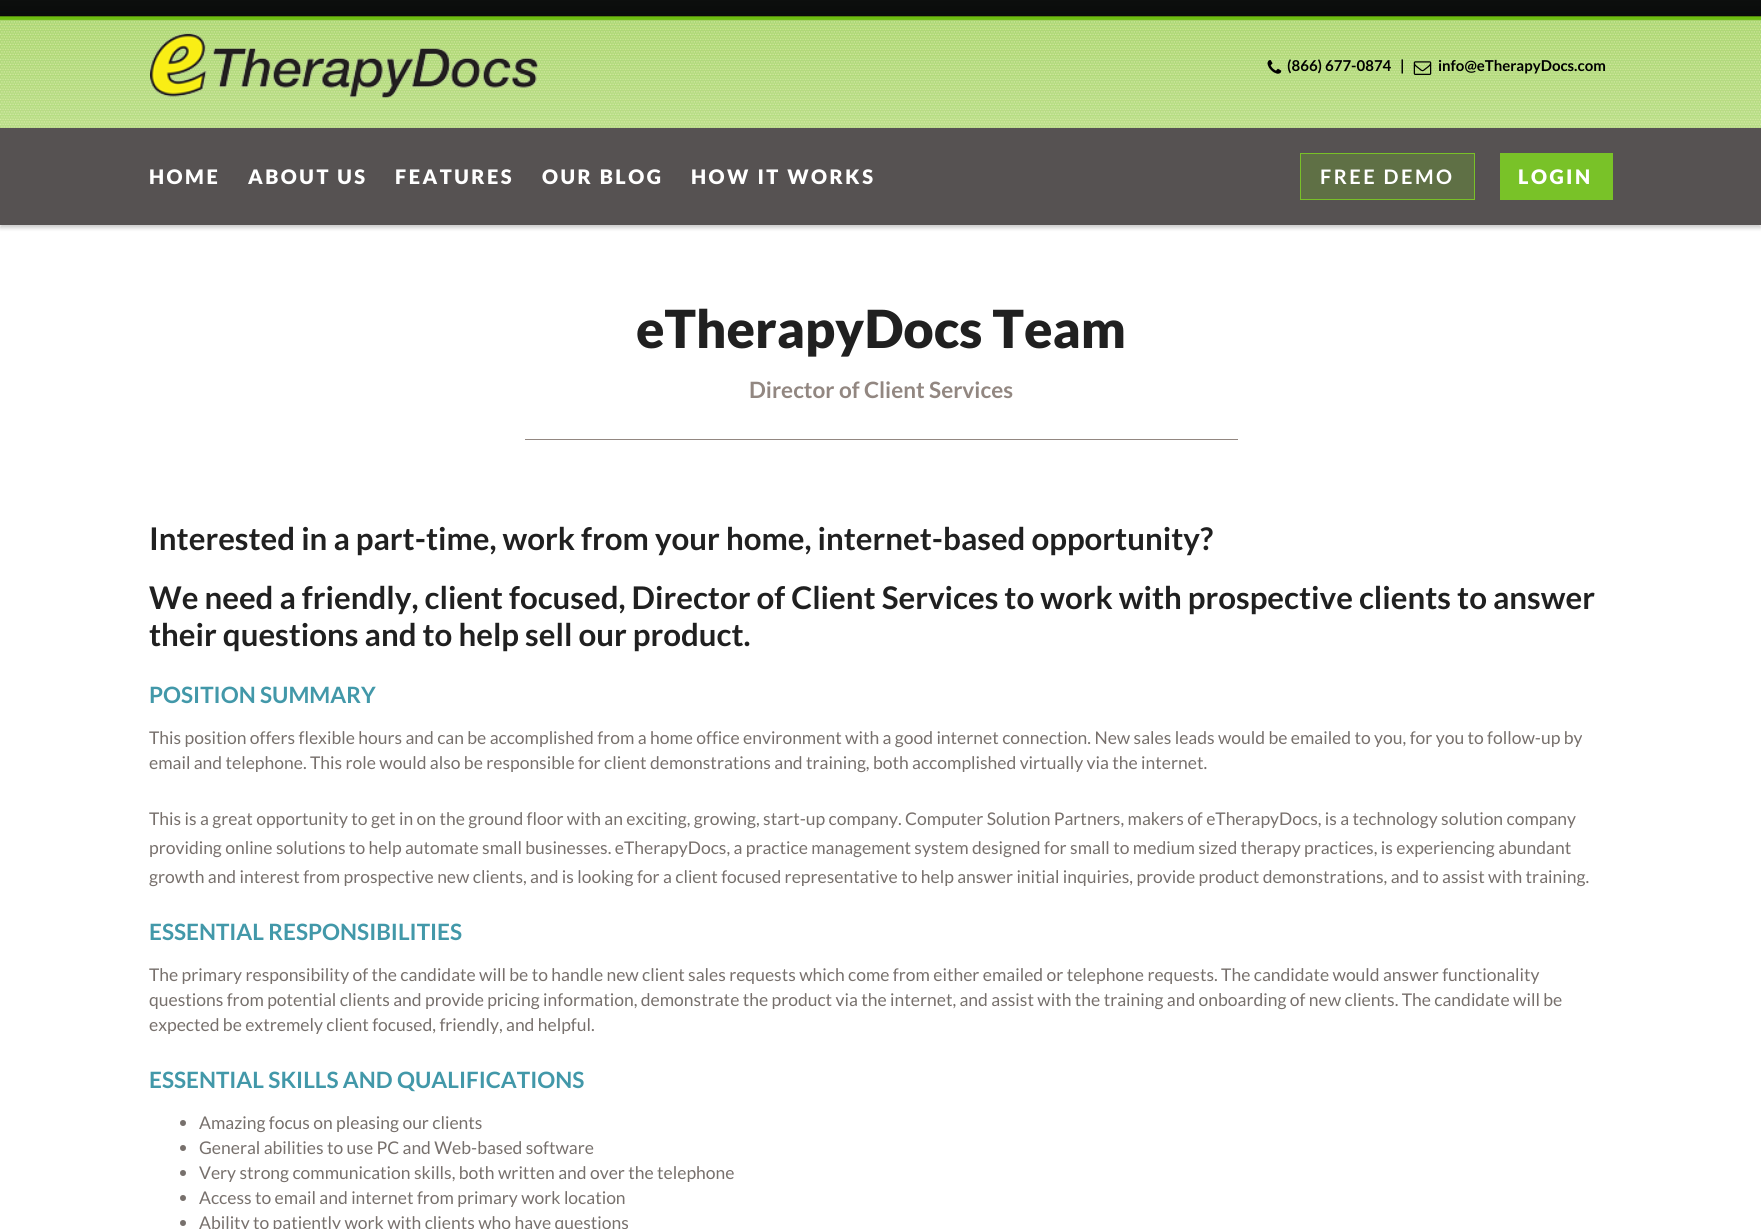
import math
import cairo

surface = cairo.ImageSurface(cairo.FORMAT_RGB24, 1761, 1229)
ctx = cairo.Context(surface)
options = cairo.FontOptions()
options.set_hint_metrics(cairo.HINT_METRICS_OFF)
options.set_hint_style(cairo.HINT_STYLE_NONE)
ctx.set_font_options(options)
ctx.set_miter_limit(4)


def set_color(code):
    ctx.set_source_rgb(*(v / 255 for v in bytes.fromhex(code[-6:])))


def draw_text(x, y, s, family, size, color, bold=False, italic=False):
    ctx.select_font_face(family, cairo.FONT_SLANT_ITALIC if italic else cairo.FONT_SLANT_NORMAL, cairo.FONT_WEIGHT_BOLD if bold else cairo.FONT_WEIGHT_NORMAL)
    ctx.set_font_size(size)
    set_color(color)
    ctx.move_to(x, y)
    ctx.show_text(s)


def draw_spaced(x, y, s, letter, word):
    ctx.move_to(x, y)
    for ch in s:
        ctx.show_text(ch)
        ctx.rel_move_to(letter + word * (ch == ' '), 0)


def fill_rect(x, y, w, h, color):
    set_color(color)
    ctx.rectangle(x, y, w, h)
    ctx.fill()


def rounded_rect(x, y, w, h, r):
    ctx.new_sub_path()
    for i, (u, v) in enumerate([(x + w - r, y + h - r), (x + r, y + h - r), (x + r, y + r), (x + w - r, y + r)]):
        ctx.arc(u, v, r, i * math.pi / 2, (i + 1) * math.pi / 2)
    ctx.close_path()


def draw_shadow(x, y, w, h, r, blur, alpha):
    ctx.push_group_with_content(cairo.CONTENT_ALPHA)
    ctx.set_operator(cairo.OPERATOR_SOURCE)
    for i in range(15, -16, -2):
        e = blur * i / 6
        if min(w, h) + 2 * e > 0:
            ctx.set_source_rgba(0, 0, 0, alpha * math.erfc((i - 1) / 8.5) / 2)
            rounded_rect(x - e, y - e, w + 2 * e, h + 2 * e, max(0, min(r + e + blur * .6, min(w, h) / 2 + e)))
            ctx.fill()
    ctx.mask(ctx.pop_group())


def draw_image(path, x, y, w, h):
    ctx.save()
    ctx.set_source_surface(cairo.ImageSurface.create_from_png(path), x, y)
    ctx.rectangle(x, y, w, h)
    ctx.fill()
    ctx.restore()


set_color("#ffffff")
ctx.paint()
draw_image("assets/img1.png", 0, 0, 1761, 128)
draw_image("assets/img2.png", 150, 33, 388, 65)
draw_image("assets/img3.png", 1267, 60, 15, 14)
draw_text(1287, 71, "(866) 677-0874", "Lato", 15, "#000000", bold=True)
draw_text(1400, 71, "|", "Lato", 15, "#000000", bold=True)
draw_image("assets/img4.png", 1413, 61, 19, 14)
draw_text(1438, 71, "info@eTherapyDocs.com", "Lato", 15, "#000000", bold=True)
set_color("#000000")
draw_shadow(0, 130, 1761, 98, 0, 2, 0.2)
fill_rect(0, 128, 1761, 97, "#565252")
ctx.select_font_face("Lato Black")
ctx.set_font_size(20)
set_color("#ffffff")
draw_spaced(149, 184, "HOME", 2.5, 0)
draw_spaced(248, 184, "ABOUT US", 2.5, 0)
draw_spaced(395, 184, "FEATURES", 2.5, 0)
draw_spaced(542, 184, "OUR BLOG", 2.5, 0)
draw_spaced(691, 184, "HOW IT WORKS", 2.5, 0)
set_color("#5f7045")
ctx.rectangle(1300.5, 153.5, 174, 46)
ctx.fill_preserve()
set_color("#79c128")
ctx.set_line_width(1)
ctx.stroke()
ctx.select_font_face("Lato", cairo.FONT_SLANT_NORMAL, cairo.FONT_WEIGHT_BOLD)
set_color("#ffffff")
draw_spaced(1320, 184, "FREE DEMO", 2.5, 0)
fill_rect(1500, 153, 113, 47, "#79c228")
ctx.select_font_face("Lato Black")
set_color("#ffffff")
draw_spaced(1518, 184, "LOGIN", 2.5, 0)
draw_text(636, 348, "eTherapyDocs Team", "Lato Black", 52.5, "#202020")
draw_text(749, 398, "Director of Client Services", "Lato", 22.5, "#928781", bold=True)
fill_rect(525, 439, 713, 1, "#928781")
draw_text(149, 550, "Interested in a part-time, work from your home, internet-based opportunity?", "Lato", 31.25, "#202020", bold=True)
draw_text(149, 609, "We need a friendly, client focused, Director of Client Services to work with prospective clients to answer", "Lato", 31.25, "#202020", bold=True)
draw_text(149, 646, "their questions and to help sell our product.", "Lato", 31.25, "#202020", bold=True)
draw_text(149, 703, "POSITION SUMMARY", "Lato", 22.5, "#4298a9", bold=True)
draw_text(149, 744, "This position offers flexible hours and can be accomplished from a home office environment with a good internet connection. New sales leads would be emailed to you, for you to follow-up by", "Lato", 17.5, "#77706c")
draw_text(149, 769, "email and telephone. This role would also be responsible for client demonstrations and training, both accomplished virtually via the internet.", "Lato", 17.5, "#77706c")
draw_text(149, 825, "This is a great opportunity to get in on the ground floor with an exciting, growing, start-up company. Computer Solution Partners, makers of eTherapyDocs, is a technology solution company", "Lato", 17.5, "#77706c")
draw_text(149, 854, "providing online solutions to help automate small businesses. eTherapyDocs, a practice management system designed for small to medium sized therapy practices, is experiencing abundant", "Lato", 17.5, "#77706c")
draw_text(149, 883, "growth and interest from prospective new clients, and is looking for a client focused representative to help answer initial inquiries, provide product demonstrations, and to assist with training.", "Lato", 17.5, "#77706c")
draw_text(149, 940, "ESSENTIAL RESPONSIBILITIES", "Lato", 22.5, "#4298a9", bold=True)
draw_text(149, 981, "The primary responsibility of the candidate will be to handle new client sales requests which come from either emailed or telephone requests. The candidate would answer functionality", "Lato", 17.5, "#77706c")
draw_text(149, 1006, "questions from potential clients and provide pricing information, demonstrate the product via the internet, and assist with the training and onboarding of new clients. The candidate will be", "Lato", 17.5, "#77706c")
draw_text(149, 1031, "expected be extremely client focused, friendly, and helpful.", "Lato", 17.5, "#77706c")
draw_text(149, 1088, "ESSENTIAL SKILLS AND QUALIFICATIONS", "Lato", 22.5, "#4298a9", bold=True)
set_color("#77706c")
ctx.new_path()
ctx.arc(183, 1123, 3, 0, 2 * math.pi)
ctx.fill()
draw_text(199, 1129, "Amazing focus on pleasing our clients", "Lato", 17.5, "#77706c")
ctx.new_path()
ctx.arc(183, 1148, 3, 0, 2 * math.pi)
ctx.fill()
draw_text(199, 1154, "General abilities to use PC and Web-based software", "Lato", 17.5, "#77706c")
ctx.new_path()
ctx.arc(183, 1173, 3, 0, 2 * math.pi)
ctx.fill()
draw_text(199, 1179, "Very strong communication skills, both written and over the telephone", "Lato", 17.5, "#77706c")
ctx.new_path()
ctx.arc(183, 1198, 3, 0, 2 * math.pi)
ctx.fill()
draw_text(199, 1204, "Access to email and internet from primary work location", "Lato", 17.5, "#77706c")
ctx.new_path()
ctx.arc(183, 1223, 3, 0, 2 * math.pi)
ctx.fill()
draw_text(199, 1229, "Ability to patiently work with clients who have questions", "Lato", 17.5, "#77706c")
surface.write_to_png("output.png")
